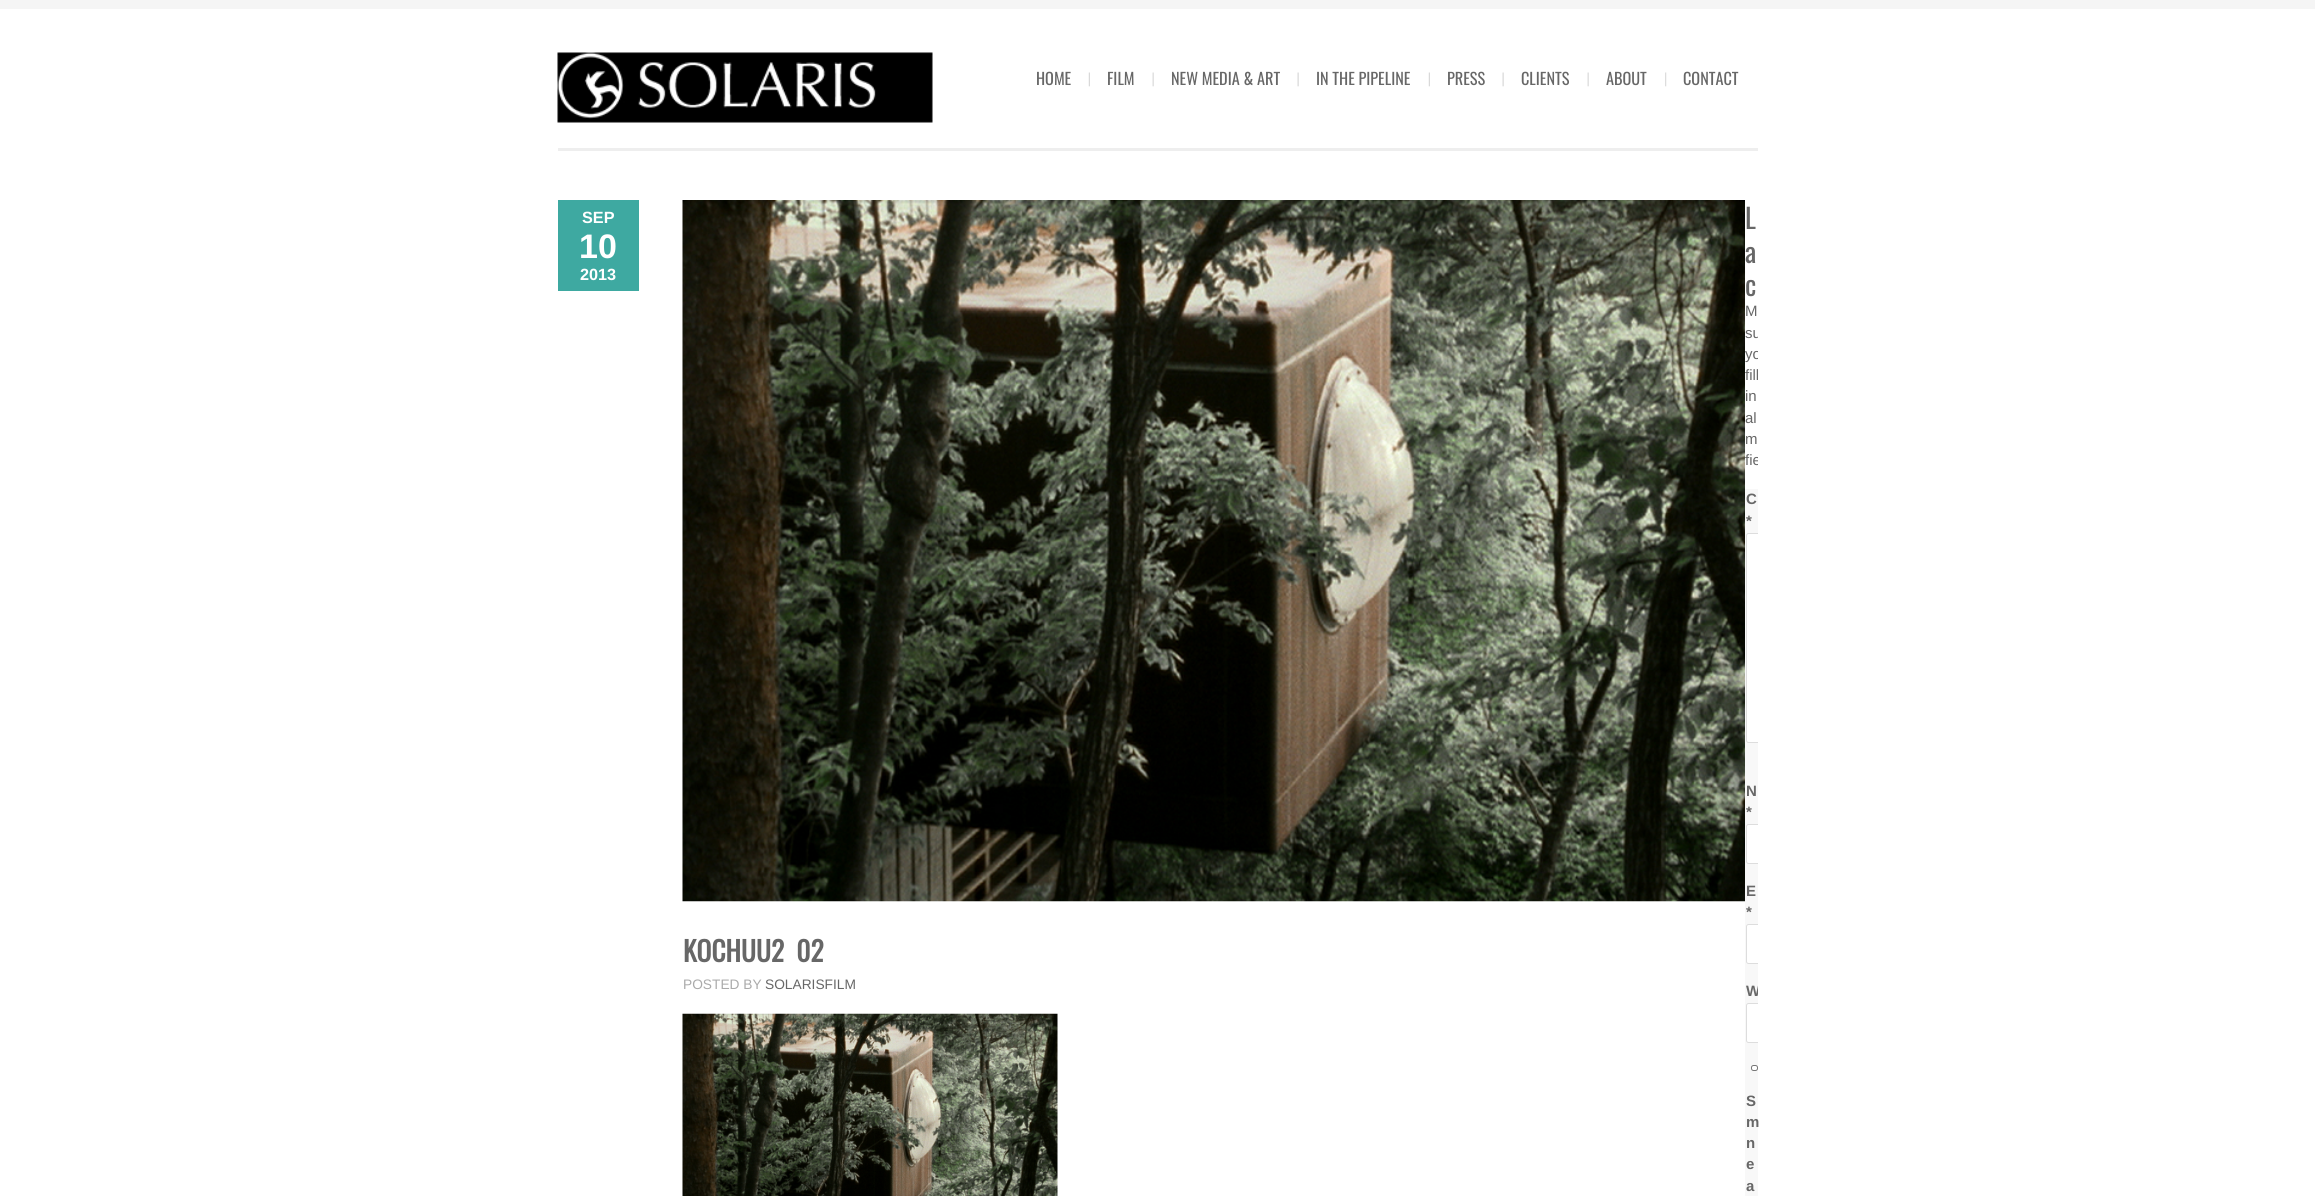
import math
import cairo

surface = cairo.ImageSurface(cairo.FORMAT_RGB24, 2315, 1196)
ctx = cairo.Context(surface)
options = cairo.FontOptions()
options.set_hint_metrics(cairo.HINT_METRICS_OFF)
options.set_hint_style(cairo.HINT_STYLE_NONE)
ctx.set_font_options(options)
ctx.set_miter_limit(4)


def set_color(code):
    ctx.set_source_rgb(*(v / 255 for v in bytes.fromhex(code[-6:])))


def draw_text(x, y, s, family, size, color, bold=False, italic=False):
    ctx.select_font_face(family, cairo.FONT_SLANT_ITALIC if italic else cairo.FONT_SLANT_NORMAL, cairo.FONT_WEIGHT_BOLD if bold else cairo.FONT_WEIGHT_NORMAL)
    ctx.set_font_size(size)
    set_color(color)
    ctx.move_to(x, y)
    ctx.show_text(s)


def draw_spaced(x, y, s, letter, word):
    ctx.move_to(x, y)
    for ch in s:
        ctx.show_text(ch)
        ctx.rel_move_to(letter + word * (ch == ' '), 0)


def fill_rect(x, y, w, h, color):
    set_color(color)
    ctx.rectangle(x, y, w, h)
    ctx.fill()


def rounded_rect(x, y, w, h, r):
    ctx.new_sub_path()
    for i, (u, v) in enumerate([(x + w - r, y + h - r), (x + r, y + h - r), (x + r, y + r), (x + w - r, y + r)]):
        ctx.arc(u, v, r, i * math.pi / 2, (i + 1) * math.pi / 2)
    ctx.close_path()


def draw_image(path, x, y, w, h):
    ctx.save()
    ctx.set_source_surface(cairo.ImageSurface.create_from_png(path), x, y)
    ctx.rectangle(x, y, w, h)
    ctx.fill()
    ctx.restore()


set_color("#ffffff")
ctx.paint()
fill_rect(0, 0, 2315, 9, "#f5f5f5")
draw_image("assets/img1.png", 557, 52, 376, 71)
draw_image("assets/img2.png", 1088, 72, 2, 15)
draw_text(1036, 85, "HOME", "Oswald", 16.25, "#676767")
draw_image("assets/img3.png", 1152, 72, 2, 15)
draw_text(1107, 85, "FILM", "Oswald", 16.25, "#676767")
draw_image("assets/img4.png", 1297, 72, 2, 15)
draw_text(1171, 85, "NEW MEDIA & ART", "Oswald", 16.25, "#676767")
draw_image("assets/img2.png", 1428, 72, 2, 15)
draw_text(1316, 85, "IN THE PIPELINE", "Oswald", 16.25, "#676767")
draw_image("assets/img4.png", 1502, 72, 2, 15)
draw_text(1447, 85, "PRESS", "Oswald", 16.25, "#676767")
draw_image("assets/img3.png", 1587, 72, 2, 15)
draw_text(1521, 85, "CLIENTS", "Oswald", 16.25, "#676767")
draw_image("assets/img5.png", 1665, 72, 2, 15)
draw_text(1606, 85, "ABOUT", "Oswald", 16.25, "#676767")
draw_text(1683, 85, "CONTACT", "Oswald", 16.25, "#676767")
fill_rect(558, 148, 1200, 3, "#eeeeee")
fill_rect(558, 200, 81, 91, "#3ea9a1")
draw_text(582, 223, "SEP", "Liberation Sans", 16.25, "#ffffff", bold=True)
draw_text(579, 258, "10", "Liberation Sans", 34, "#ffffff", bold=True)
draw_text(580, 280, "2013", "Liberation Sans", 16.25, "#ffffff", bold=True)
draw_image("assets/img6.png", 682, 200, 1063, 702)
ctx.select_font_face("Oswald", cairo.FONT_SLANT_NORMAL, cairo.FONT_WEIGHT_BOLD)
ctx.set_font_size(27.5)
set_color("#676767")
draw_spaced(683, 962, "KOCHUU2 02", 0, 6)
draw_text(683, 989, "POSTED BY", "Liberation Sans", 13.75, "#aaaaaa")
draw_text(765, 989, "SOLARISFILM", "Liberation Sans", 13.75, "#676767")
draw_image("assets/img7.png", 682, 1013, 376, 183)
draw_text(1745, 229, "L", "Oswald", 27.5, "#676767")
draw_text(1745, 263, "a", "Oswald", 27.5, "#676767")
draw_text(1745, 296, "c", "Oswald", 27.5, "#676767")
draw_text(1745, 316, "M", "Liberation Sans", 15, "#676767")
ctx.save()
ctx.rectangle(1745, 200, 13, 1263)
ctx.clip()
draw_text(1745, 338, "su", "Liberation Sans", 15, "#676767")
draw_text(1745, 359, "yo", "Liberation Sans", 15, "#676767")
draw_text(1745, 380, "fill", "Liberation Sans", 15, "#676767")
ctx.restore()
draw_text(1745, 401, "in", "Liberation Sans", 15, "#676767")
draw_text(1745, 423, "al", "Liberation Sans", 15, "#676767")
draw_text(1745, 444, "m", "Liberation Sans", 15, "#676767")
ctx.save()
ctx.rectangle(1745, 200, 13, 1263)
ctx.clip()
draw_text(1745, 465, "fie", "Liberation Sans", 15, "#676767")
ctx.restore()
fill_rect(1745, 489, 13, 707, "#f8f8f8")
draw_text(1746, 504, "C", "Liberation Sans", 15, "#676767", bold=True)
draw_text(1746, 526, "*", "Liberation Sans", 15, "#676767", bold=True)
set_color("#ffffff")
ctx.new_path()
ctx.move_to(1748.5, 533)
ctx.line_to(1758, 533)
ctx.line_to(1758, 743)
ctx.line_to(1748.5, 743)
ctx.curve_to(1747, 743, 1746, 742, 1746, 740.5)
ctx.line_to(1746, 535.5)
ctx.curve_to(1746, 534, 1747, 533, 1748.5, 533)
ctx.close_path()
ctx.fill()
ctx.save()
ctx.rectangle(1745, 489, 13, 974)
ctx.clip()
rounded_rect(1746.5, 533.5, 32, 209, 2)
set_color("#dddddd")
ctx.set_line_width(1)
ctx.stroke()
ctx.restore()
draw_text(1746, 796, "N", "Liberation Sans", 15, "#676767", bold=True)
draw_text(1746, 817, "*", "Liberation Sans", 15, "#676767", bold=True)
set_color("#ffffff")
ctx.new_path()
ctx.move_to(1748.5, 824)
ctx.line_to(1758, 824)
ctx.line_to(1758, 864)
ctx.line_to(1748.5, 864)
ctx.curve_to(1747, 864, 1746, 863, 1746, 861.5)
ctx.line_to(1746, 826.5)
ctx.curve_to(1746, 825, 1747, 824, 1748.5, 824)
ctx.close_path()
ctx.fill()
ctx.save()
ctx.rectangle(1745, 489, 13, 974)
ctx.clip()
rounded_rect(1746.5, 824.5, 28, 39, 2)
set_color("#dddddd")
ctx.set_line_width(1)
ctx.stroke()
ctx.restore()
draw_text(1746, 896, "E", "Liberation Sans", 15, "#676767", bold=True)
draw_text(1746, 917, "*", "Liberation Sans", 15, "#676767", bold=True)
set_color("#ffffff")
ctx.new_path()
ctx.move_to(1748.5, 924)
ctx.line_to(1758, 924)
ctx.line_to(1758, 964)
ctx.line_to(1748.5, 964)
ctx.curve_to(1747, 964, 1746, 963, 1746, 961.5)
ctx.line_to(1746, 926.5)
ctx.curve_to(1746, 925, 1747, 924, 1748.5, 924)
ctx.close_path()
ctx.fill()
ctx.save()
ctx.rectangle(1745, 489, 13, 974)
ctx.clip()
rounded_rect(1746.5, 924.5, 28, 39, 2)
set_color("#dddddd")
ctx.set_line_width(1)
ctx.stroke()
draw_text(1746, 996, "W", "Liberation Sans", 15, "#676767", bold=True)
ctx.restore()
ctx.new_path()
ctx.move_to(1748.5, 1003)
ctx.line_to(1758, 1003)
ctx.line_to(1758, 1043)
ctx.line_to(1748.5, 1043)
ctx.curve_to(1747, 1043, 1746, 1042, 1746, 1040.5)
ctx.line_to(1746, 1005.5)
ctx.curve_to(1746, 1004, 1747, 1003, 1748.5, 1003)
ctx.close_path()
ctx.fill()
ctx.save()
ctx.rectangle(1745, 489, 13, 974)
ctx.clip()
rounded_rect(1746.5, 1003.5, 28, 39, 2)
set_color("#dddddd")
ctx.set_line_width(1)
ctx.stroke()
ctx.restore()
rounded_rect(1751.5, 1065.5, 6, 5, 2)
ctx.fill_preserve()
set_color("#767676")
ctx.set_line_width(1)
ctx.stroke()
draw_text(1746, 1106, "S", "Liberation Sans", 15, "#676767", bold=True)
draw_text(1746, 1127, "m", "Liberation Sans", 15, "#676767", bold=True)
draw_text(1746, 1148, "n", "Liberation Sans", 15, "#676767", bold=True)
draw_text(1746, 1169, "e", "Liberation Sans", 15, "#676767", bold=True)
draw_text(1746, 1191, "a", "Liberation Sans", 15, "#676767", bold=True)
surface.write_to_png("output.png")
